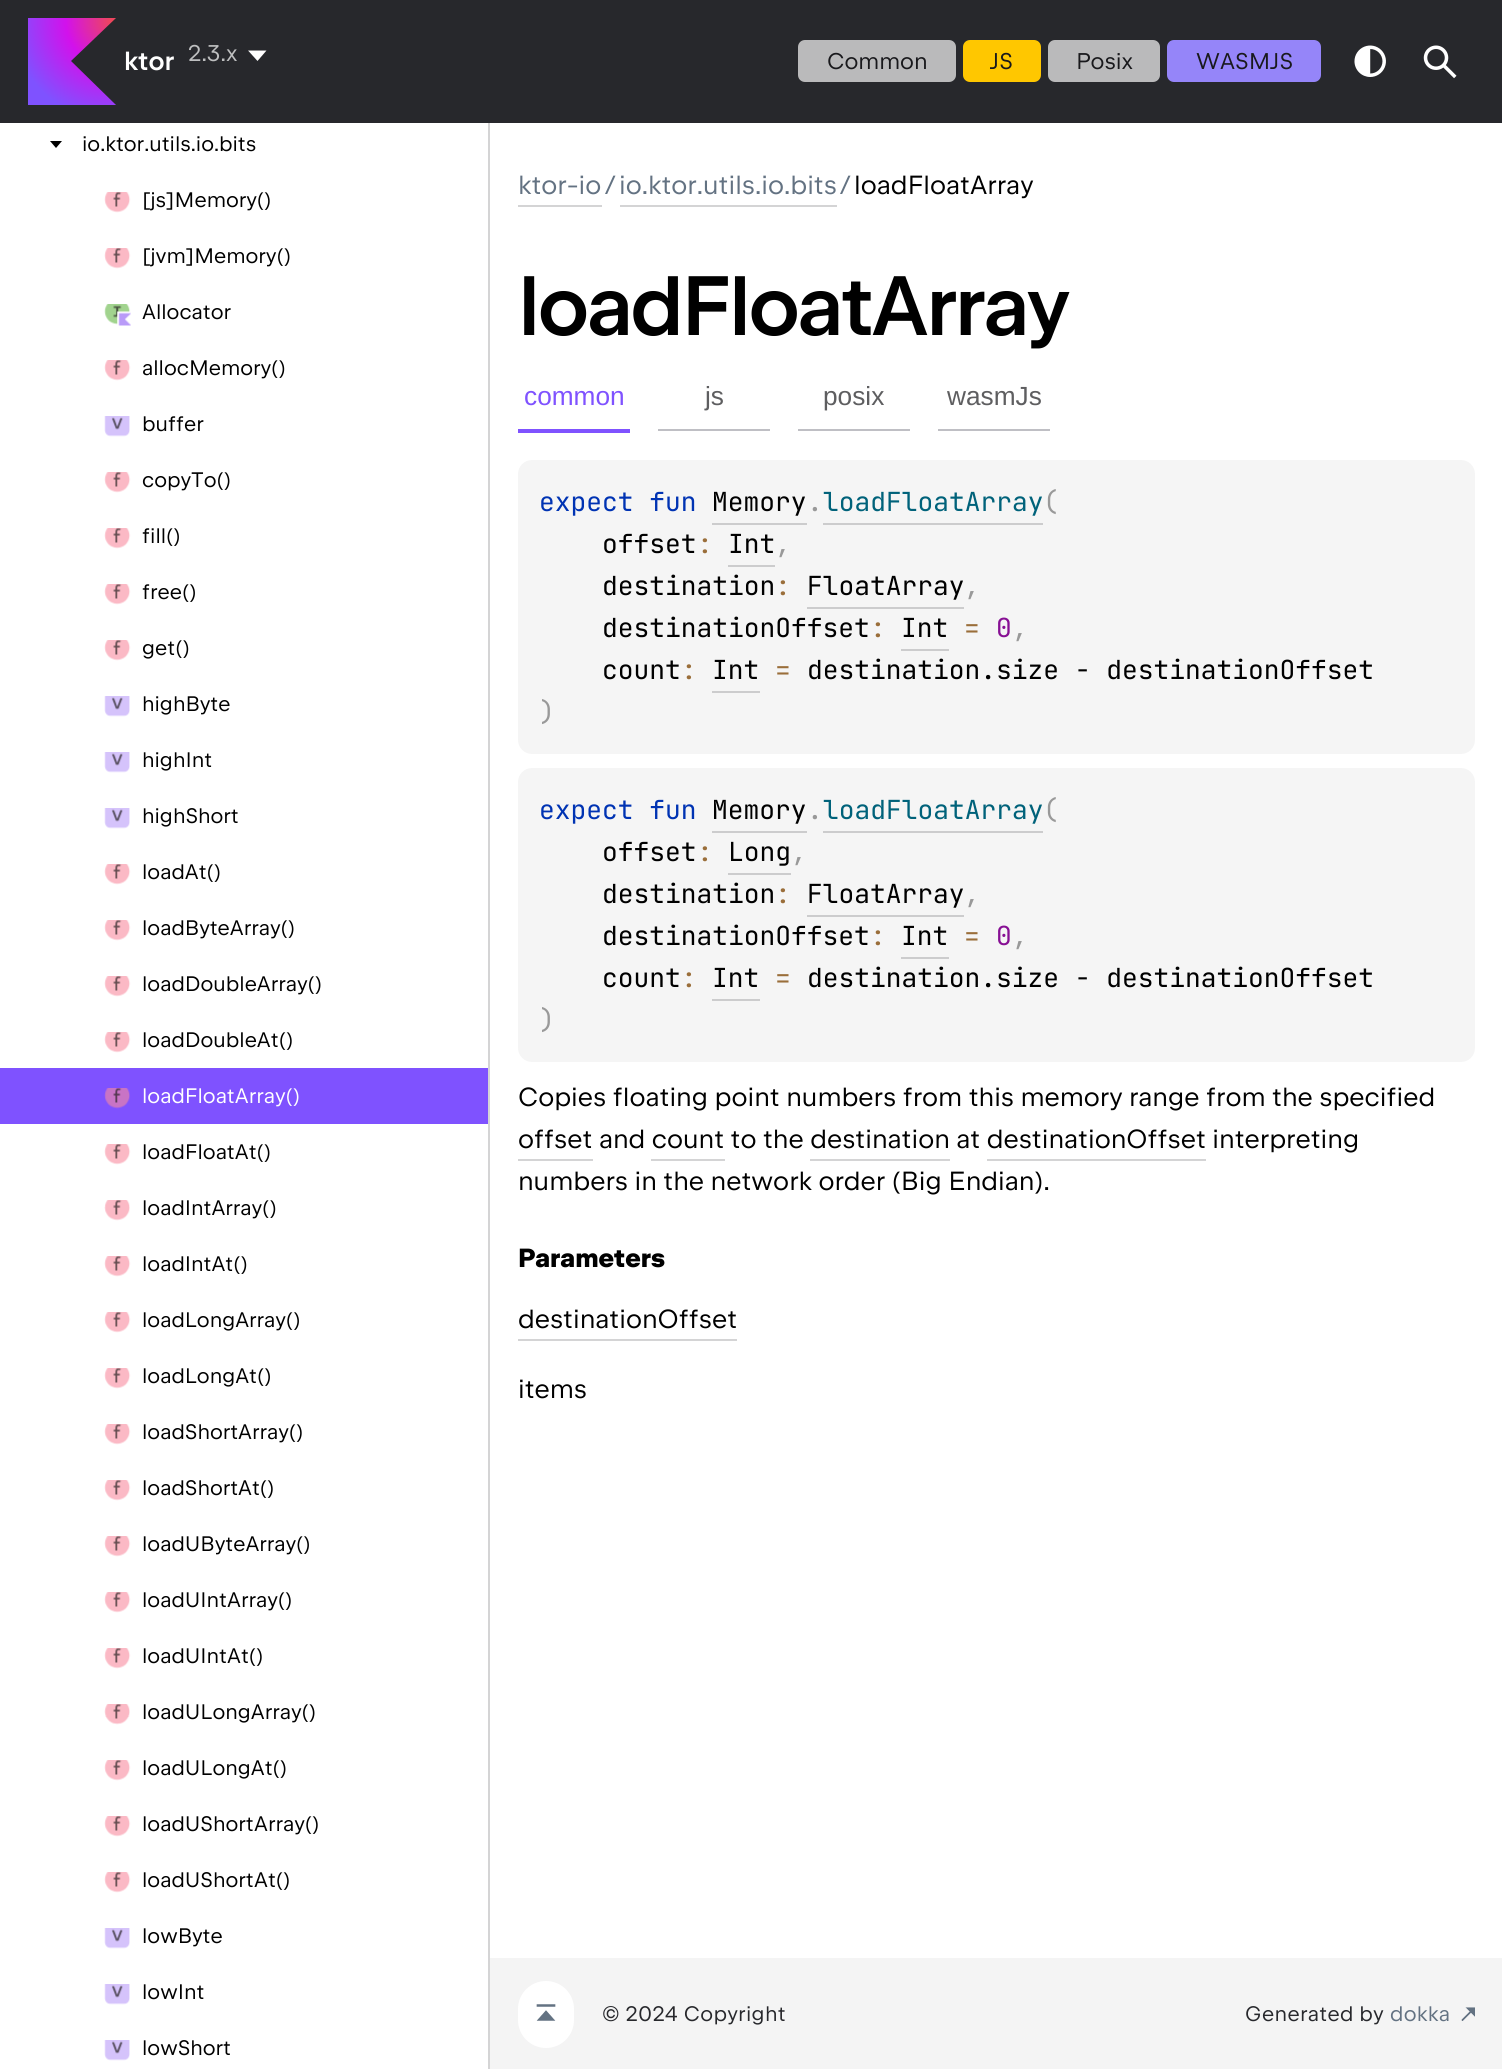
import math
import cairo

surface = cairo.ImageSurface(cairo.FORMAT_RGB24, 1502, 2069)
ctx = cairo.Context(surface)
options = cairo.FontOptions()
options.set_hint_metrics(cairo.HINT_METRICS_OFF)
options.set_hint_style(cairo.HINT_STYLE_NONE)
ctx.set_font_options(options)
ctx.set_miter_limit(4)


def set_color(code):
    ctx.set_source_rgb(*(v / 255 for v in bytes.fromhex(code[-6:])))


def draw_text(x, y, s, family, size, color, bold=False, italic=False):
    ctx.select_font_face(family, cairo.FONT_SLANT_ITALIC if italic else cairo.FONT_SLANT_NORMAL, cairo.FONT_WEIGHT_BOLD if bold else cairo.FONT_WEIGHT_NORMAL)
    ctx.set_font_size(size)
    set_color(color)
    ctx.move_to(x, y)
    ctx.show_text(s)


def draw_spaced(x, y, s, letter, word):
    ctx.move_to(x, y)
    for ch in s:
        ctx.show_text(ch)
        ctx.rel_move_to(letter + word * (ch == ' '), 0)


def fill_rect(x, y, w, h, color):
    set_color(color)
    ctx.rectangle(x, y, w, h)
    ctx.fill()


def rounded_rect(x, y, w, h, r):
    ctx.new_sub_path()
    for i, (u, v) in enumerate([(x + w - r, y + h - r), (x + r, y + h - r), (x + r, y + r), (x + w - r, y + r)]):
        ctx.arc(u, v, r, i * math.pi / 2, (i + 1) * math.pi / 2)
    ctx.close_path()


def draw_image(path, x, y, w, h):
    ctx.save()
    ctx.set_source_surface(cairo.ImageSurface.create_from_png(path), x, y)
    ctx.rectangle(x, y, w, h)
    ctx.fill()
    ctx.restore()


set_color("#ffffff")
ctx.paint()
fill_rect(0, 0, 1502, 123, "#27282c")
gradient = cairo.RadialGradient(113, 21, 0, 113, 21, 100)
gradient.add_color_stop_rgba(0, 0.937, 0.282, 0.341, 1)
gradient.add_color_stop_rgba(0.47, 0.824, 0.067, 0.925, 1)
gradient.add_color_stop_rgba(1, 0.498, 0.322, 1, 1)
ctx.set_source(gradient)
ctx.new_path()
ctx.move_to(116, 105)
ctx.line_to(28, 105)
ctx.line_to(28, 18)
ctx.line_to(116, 18)
ctx.line_to(71, 61)
ctx.close_path()
ctx.fill()
draw_text(124, 70, "ktor", "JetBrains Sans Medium", 26.25, "#ffffff")
draw_text(188, 61, "2.3.x", "JetBrains Sans", 22.75, "#bebfc0")
set_color("#ffffff")
ctx.new_path()
ctx.move_to(257.5, 61)
ctx.line_to(248, 50.5)
ctx.line_to(266.5, 50.5)
ctx.close_path()
ctx.fill()
set_color("#bababb")
rounded_rect(798, 40, 158, 42, 7)
ctx.fill()
draw_text(827, 69, "Common", "JetBrains Sans", 22.75, "#19191c")
set_color("#ffc700")
rounded_rect(963, 40, 78, 42, 7)
ctx.fill()
draw_text(990, 69, "JS", "JetBrains Sans", 22.75, "#19191c")
set_color("#bababb")
rounded_rect(1048, 40, 112, 42, 7)
ctx.fill()
draw_text(1076, 69, "Posix", "JetBrains Sans", 22.75, "#19191c")
set_color("#9585f9")
rounded_rect(1167, 40, 154, 42, 7)
ctx.fill()
draw_text(1196, 69, "WASMJS", "JetBrains Sans", 22.75, "#19191c")
draw_image("assets/img1.png", 1354, 45, 32, 32)
draw_image("assets/img2.png", 1423, 45, 34, 34)
fill_rect(488, 123, 2, 1946, "#d4d4d5")
set_color("#000000")
ctx.new_path()
ctx.move_to(56, 148)
ctx.line_to(50, 141)
ctx.line_to(62, 141)
ctx.close_path()
ctx.fill()
draw_text(82, 151, "io.ktor.utils.io.bits", "JetBrains Sans", 21, "#000000")
draw_image("assets/img3.png", 104, 192, 27, 21)
draw_text(142, 207, "[js]Memory()", "JetBrains Sans", 21, "#000000")
draw_image("assets/img4.png", 104, 248, 27, 21)
draw_text(142, 263, "[jvm]Memory()", "JetBrains Sans", 21, "#000000")
draw_image("assets/img5.png", 104, 304, 27, 22)
draw_text(142, 319, "Allocator", "JetBrains Sans", 21, "#000000")
draw_image("assets/img4.png", 104, 360, 27, 21)
draw_text(142, 375, "allocMemory()", "JetBrains Sans", 21, "#000000")
draw_image("assets/img6.png", 104, 416, 26, 21)
draw_text(142, 431, "buffer", "JetBrains Sans", 21, "#000000")
draw_image("assets/img4.png", 104, 472, 27, 21)
draw_text(142, 487, "copyTo()", "JetBrains Sans", 21, "#000000")
draw_image("assets/img4.png", 104, 528, 27, 21)
draw_text(142, 543, "fill()", "JetBrains Sans", 21, "#000000")
draw_image("assets/img4.png", 104, 584, 27, 21)
draw_text(142, 599, "free()", "JetBrains Sans", 21, "#000000")
draw_image("assets/img4.png", 104, 640, 27, 21)
draw_text(142, 655, "get()", "JetBrains Sans", 21, "#000000")
draw_image("assets/img7.png", 104, 696, 26, 21)
draw_text(142, 711, "highByte", "JetBrains Sans", 21, "#000000")
draw_image("assets/img6.png", 104, 752, 26, 21)
draw_text(142, 767, "highInt", "JetBrains Sans", 21, "#000000")
draw_image("assets/img6.png", 104, 808, 26, 21)
draw_text(142, 823, "highShort", "JetBrains Sans", 21, "#000000")
draw_image("assets/img4.png", 104, 864, 27, 21)
draw_text(142, 879, "loadAt()", "JetBrains Sans", 21, "#000000")
draw_image("assets/img4.png", 104, 920, 27, 21)
draw_text(142, 935, "loadByteArray()", "JetBrains Sans", 21, "#000000")
draw_image("assets/img4.png", 104, 976, 27, 21)
draw_text(142, 991, "loadDoubleArray()", "JetBrains Sans", 21, "#000000")
draw_image("assets/img4.png", 104, 1032, 27, 21)
draw_text(142, 1047, "loadDoubleAt()", "JetBrains Sans", 21, "#000000")
fill_rect(0, 1068, 488, 56, "#7f52ff")
draw_image("assets/img8.png", 104, 1088, 26, 21)
draw_text(142, 1103, "loadFloatArray()", "JetBrains Sans", 21, "#ffffff")
draw_image("assets/img4.png", 104, 1144, 27, 21)
draw_text(142, 1159, "loadFloatAt()", "JetBrains Sans", 21, "#000000")
draw_image("assets/img9.png", 104, 1200, 26, 21)
draw_text(142, 1215, "loadIntArray()", "JetBrains Sans", 21, "#000000")
draw_image("assets/img4.png", 104, 1256, 27, 21)
draw_text(142, 1271, "loadIntAt()", "JetBrains Sans", 21, "#000000")
draw_image("assets/img4.png", 104, 1312, 27, 21)
draw_text(142, 1327, "loadLongArray()", "JetBrains Sans", 21, "#000000")
draw_image("assets/img4.png", 104, 1368, 27, 21)
draw_text(142, 1383, "loadLongAt()", "JetBrains Sans", 21, "#000000")
draw_image("assets/img4.png", 104, 1424, 27, 21)
draw_text(142, 1439, "loadShort", "JetBrains Sans", 21, "#000000")
draw_text(238, 1439, "Array()", "JetBrains Sans", 21, "#000000")
draw_image("assets/img4.png", 104, 1480, 27, 21)
draw_text(142, 1495, "loadShort", "JetBrains Sans", 21, "#000000")
draw_text(238, 1495, "At()", "JetBrains Sans", 21, "#000000")
draw_image("assets/img4.png", 104, 1536, 27, 21)
draw_text(142, 1551, "loadUByteArray()", "JetBrains Sans", 21, "#000000")
draw_image("assets/img4.png", 104, 1592, 27, 21)
draw_text(142, 1607, "loadUIntArray()", "JetBrains Sans", 21, "#000000")
draw_image("assets/img4.png", 104, 1648, 27, 21)
draw_text(142, 1663, "loadUIntAt()", "JetBrains Sans", 21, "#000000")
draw_image("assets/img10.png", 104, 1704, 26, 21)
draw_text(142, 1719, "loadULongArray()", "JetBrains Sans", 21, "#000000")
draw_image("assets/img4.png", 104, 1760, 27, 21)
draw_text(142, 1775, "loadULongAt()", "JetBrains Sans", 21, "#000000")
draw_image("assets/img4.png", 104, 1816, 27, 21)
draw_text(142, 1831, "loadUShort", "JetBrains Sans", 21, "#000000")
draw_text(254, 1831, "Array()", "JetBrains Sans", 21, "#000000")
draw_image("assets/img4.png", 104, 1872, 27, 21)
draw_text(142, 1887, "loadUShort", "JetBrains Sans", 21, "#000000")
draw_text(254, 1887, "At()", "JetBrains Sans", 21, "#000000")
draw_image("assets/img6.png", 104, 1928, 26, 21)
draw_text(142, 1943, "lowByte", "JetBrains Sans", 21, "#000000")
draw_image("assets/img6.png", 104, 1984, 26, 21)
draw_text(142, 1999, "lowInt", "JetBrains Sans", 21, "#000000")
draw_image("assets/img6.png", 104, 2040, 26, 21)
draw_text(142, 2055, "lowShort", "JetBrains Sans", 21, "#000000")
draw_text(518, 194, "ktor-io", "JetBrains Sans", 26.25, "#637282")
fill_rect(518, 205, 84, 2, "#d4d4d5")
draw_text(605, 194, "/", "JetBrains Sans", 26.25, "#637282")
draw_text(619, 194, "io.ktor.utils.io.bits", "JetBrains Sans", 26.25, "#637282")
fill_rect(620, 205, 217, 2, "#d4d4d5")
draw_text(840, 194, "/", "JetBrains Sans", 26.25, "#637282")
draw_text(854, 194, "loadFloatArray", "JetBrains Sans", 26.25, "#000000")
ctx.select_font_face("JetBrains Sans Medium")
ctx.set_font_size(84)
draw_spaced(518, 335, "loadFloatArray", -2.6, 0)
fill_rect(518, 429, 112, 4, "#7f52ff")
draw_text(524, 405, "common", "Liberation Sans", 26.25, "#7f52ff")
fill_rect(658, 429, 112, 2, "#bfbfc4")
draw_text(705, 405, "js", "Liberation Sans", 26.25, "#5e5e60")
fill_rect(798, 429, 112, 2, "#bfbfc4")
draw_text(823, 405, "posix", "Liberation Sans", 26.25, "#5e5e60")
fill_rect(938, 429, 112, 2, "#bfbfc4")
draw_text(947, 405, "wasmJs", "Liberation Sans", 26.25, "#5e5e60")
set_color("#f5f5f5")
rounded_rect(518, 460, 957, 294, 14)
ctx.fill()
draw_text(539, 511, "expect fun", "JetBrains Mono", 26.25, "#0033b3")
draw_text(712, 511, "Memory", "JetBrains Mono", 26.25, "#000000")
fill_rect(712, 523, 95, 2, "#cccccd")
draw_text(807, 511, ".", "JetBrains Mono", 26.25, "#999999")
draw_text(823, 511, "loadFloatArray", "JetBrains Mono", 26.25, "#00627a")
fill_rect(823, 523, 220, 2, "#cccccd")
draw_text(1043, 511, "(", "JetBrains Mono", 26.25, "#999999")
draw_text(602, 553, "offset", "JetBrains Mono", 26.25, "#000000")
draw_text(697, 553, ":", "JetBrains Mono", 26.25, "#9a6e3a")
draw_text(728, 553, "Int", "JetBrains Mono", 26.25, "#000000")
fill_rect(728, 565, 47, 2, "#cccccd")
draw_text(775, 553, ",", "JetBrains Mono", 26.25, "#999999")
draw_text(602, 595, "destination", "JetBrains Mono", 26.25, "#000000")
draw_text(775, 595, ":", "JetBrains Mono", 26.25, "#9a6e3a")
draw_text(807, 595, "FloatArray", "JetBrains Mono", 26.25, "#000000")
fill_rect(807, 607, 157, 2, "#cccccd")
draw_text(964, 595, ",", "JetBrains Mono", 26.25, "#999999")
draw_text(602, 637, "destinationOffset", "JetBrains Mono", 26.25, "#000000")
draw_text(870, 637, ":", "JetBrains Mono", 26.25, "#9a6e3a")
draw_text(901, 637, "Int", "JetBrains Mono", 26.25, "#000000")
fill_rect(901, 649, 48, 2, "#cccccd")
draw_text(964, 637, "=", "JetBrains Mono", 26.25, "#9a6e3a")
draw_text(996, 637, "0", "JetBrains Mono", 26.25, "#871094")
draw_text(1012, 637, ",", "JetBrains Mono", 26.25, "#999999")
draw_text(602, 679, "count", "JetBrains Mono", 26.25, "#000000")
draw_text(681, 679, ":", "JetBrains Mono", 26.25, "#9a6e3a")
draw_text(712, 679, "Int", "JetBrains Mono", 26.25, "#000000")
fill_rect(712, 691, 48, 2, "#cccccd")
draw_text(775, 679, "=", "JetBrains Mono", 26.25, "#9a6e3a")
draw_text(807, 679, "destination.size - destinationOffset", "JetBrains Mono", 26.25, "#000000")
draw_text(539, 721, ")", "JetBrains Mono", 26.25, "#999999")
set_color("#f5f5f5")
rounded_rect(518, 768, 957, 294, 14)
ctx.fill()
draw_text(539, 819, "expect fun", "JetBrains Mono", 26.25, "#0033b3")
draw_text(712, 819, "Memory", "JetBrains Mono", 26.25, "#000000")
fill_rect(712, 831, 95, 2, "#cccccd")
draw_text(807, 819, ".", "JetBrains Mono", 26.25, "#999999")
draw_text(823, 819, "loadFloatArray", "JetBrains Mono", 26.25, "#00627a")
fill_rect(823, 831, 220, 2, "#cccccd")
draw_text(1043, 819, "(", "JetBrains Mono", 26.25, "#999999")
draw_text(602, 861, "offset", "JetBrains Mono", 26.25, "#000000")
draw_text(697, 861, ":", "JetBrains Mono", 26.25, "#9a6e3a")
draw_text(728, 861, "Long", "JetBrains Mono", 26.25, "#000000")
fill_rect(728, 873, 63, 2, "#cccccd")
draw_text(791, 861, ",", "JetBrains Mono", 26.25, "#999999")
draw_text(602, 903, "destination", "JetBrains Mono", 26.25, "#000000")
draw_text(775, 903, ":", "JetBrains Mono", 26.25, "#9a6e3a")
draw_text(807, 903, "FloatArray", "JetBrains Mono", 26.25, "#000000")
fill_rect(807, 915, 157, 2, "#cccccd")
draw_text(964, 903, ",", "JetBrains Mono", 26.25, "#999999")
draw_text(602, 945, "destinationOffset", "JetBrains Mono", 26.25, "#000000")
draw_text(870, 945, ":", "JetBrains Mono", 26.25, "#9a6e3a")
draw_text(901, 945, "Int", "JetBrains Mono", 26.25, "#000000")
fill_rect(901, 957, 48, 2, "#cccccd")
draw_text(964, 945, "=", "JetBrains Mono", 26.25, "#9a6e3a")
draw_text(996, 945, "0", "JetBrains Mono", 26.25, "#871094")
draw_text(1012, 945, ",", "JetBrains Mono", 26.25, "#999999")
draw_text(602, 987, "count", "JetBrains Mono", 26.25, "#000000")
draw_text(681, 987, ":", "JetBrains Mono", 26.25, "#9a6e3a")
draw_text(712, 987, "Int", "JetBrains Mono", 26.25, "#000000")
fill_rect(712, 999, 48, 2, "#cccccd")
draw_text(775, 987, "=", "JetBrains Mono", 26.25, "#9a6e3a")
draw_text(807, 987, "destination.size - destinationOffset", "JetBrains Mono", 26.25, "#000000")
draw_text(539, 1029, ")", "JetBrains Mono", 26.25, "#999999")
draw_text(518, 1106, "Copies floating point numbers from this memory range from the specified", "JetBrains Sans", 26.25, "#000000")
draw_text(518, 1148, "offset and count to the destination at destinationOffset interpreting", "JetBrains Sans", 26.25, "#000000")
fill_rect(518, 1159, 75, 2, "#d4d4d5")
fill_rect(651, 1159, 74, 2, "#d4d4d5")
fill_rect(810, 1159, 140, 2, "#d4d4d5")
fill_rect(987, 1159, 219, 2, "#d4d4d5")
draw_text(518, 1190, "numbers in the network order (Big Endian).", "JetBrains Sans", 26.25, "#000000")
draw_text(518, 1267, "Parameters", "JetBrains Sans", 26.25, "#000000", bold=True)
draw_text(518, 1328, "destinationOffset", "JetBrains Sans", 26.25, "#000000")
fill_rect(518, 1339, 219, 2, "#d4d4d5")
draw_text(518, 1398, "items", "JetBrains Sans", 26.25, "#000000")
fill_rect(490, 1958, 1012, 111, "#f4f4f4")
set_color("#ffffff")
rounded_rect(518, 1981, 56, 67, 28)
ctx.fill()
draw_image("assets/img11.png", 536, 2004, 20, 17)
ctx.set_font_size(21)
set_color("#27282c")
draw_spaced(602, 2021, "© 2024 Copyright", 0.3, 0)
draw_spaced(1245, 2021, "Generated by", 0.3, 0)
set_color("#637282")
draw_spaced(1390, 2021, "dokka", 0.3, 0)
draw_image("assets/img12.png", 1461, 2007, 14, 14)
surface.write_to_png("output.png")
